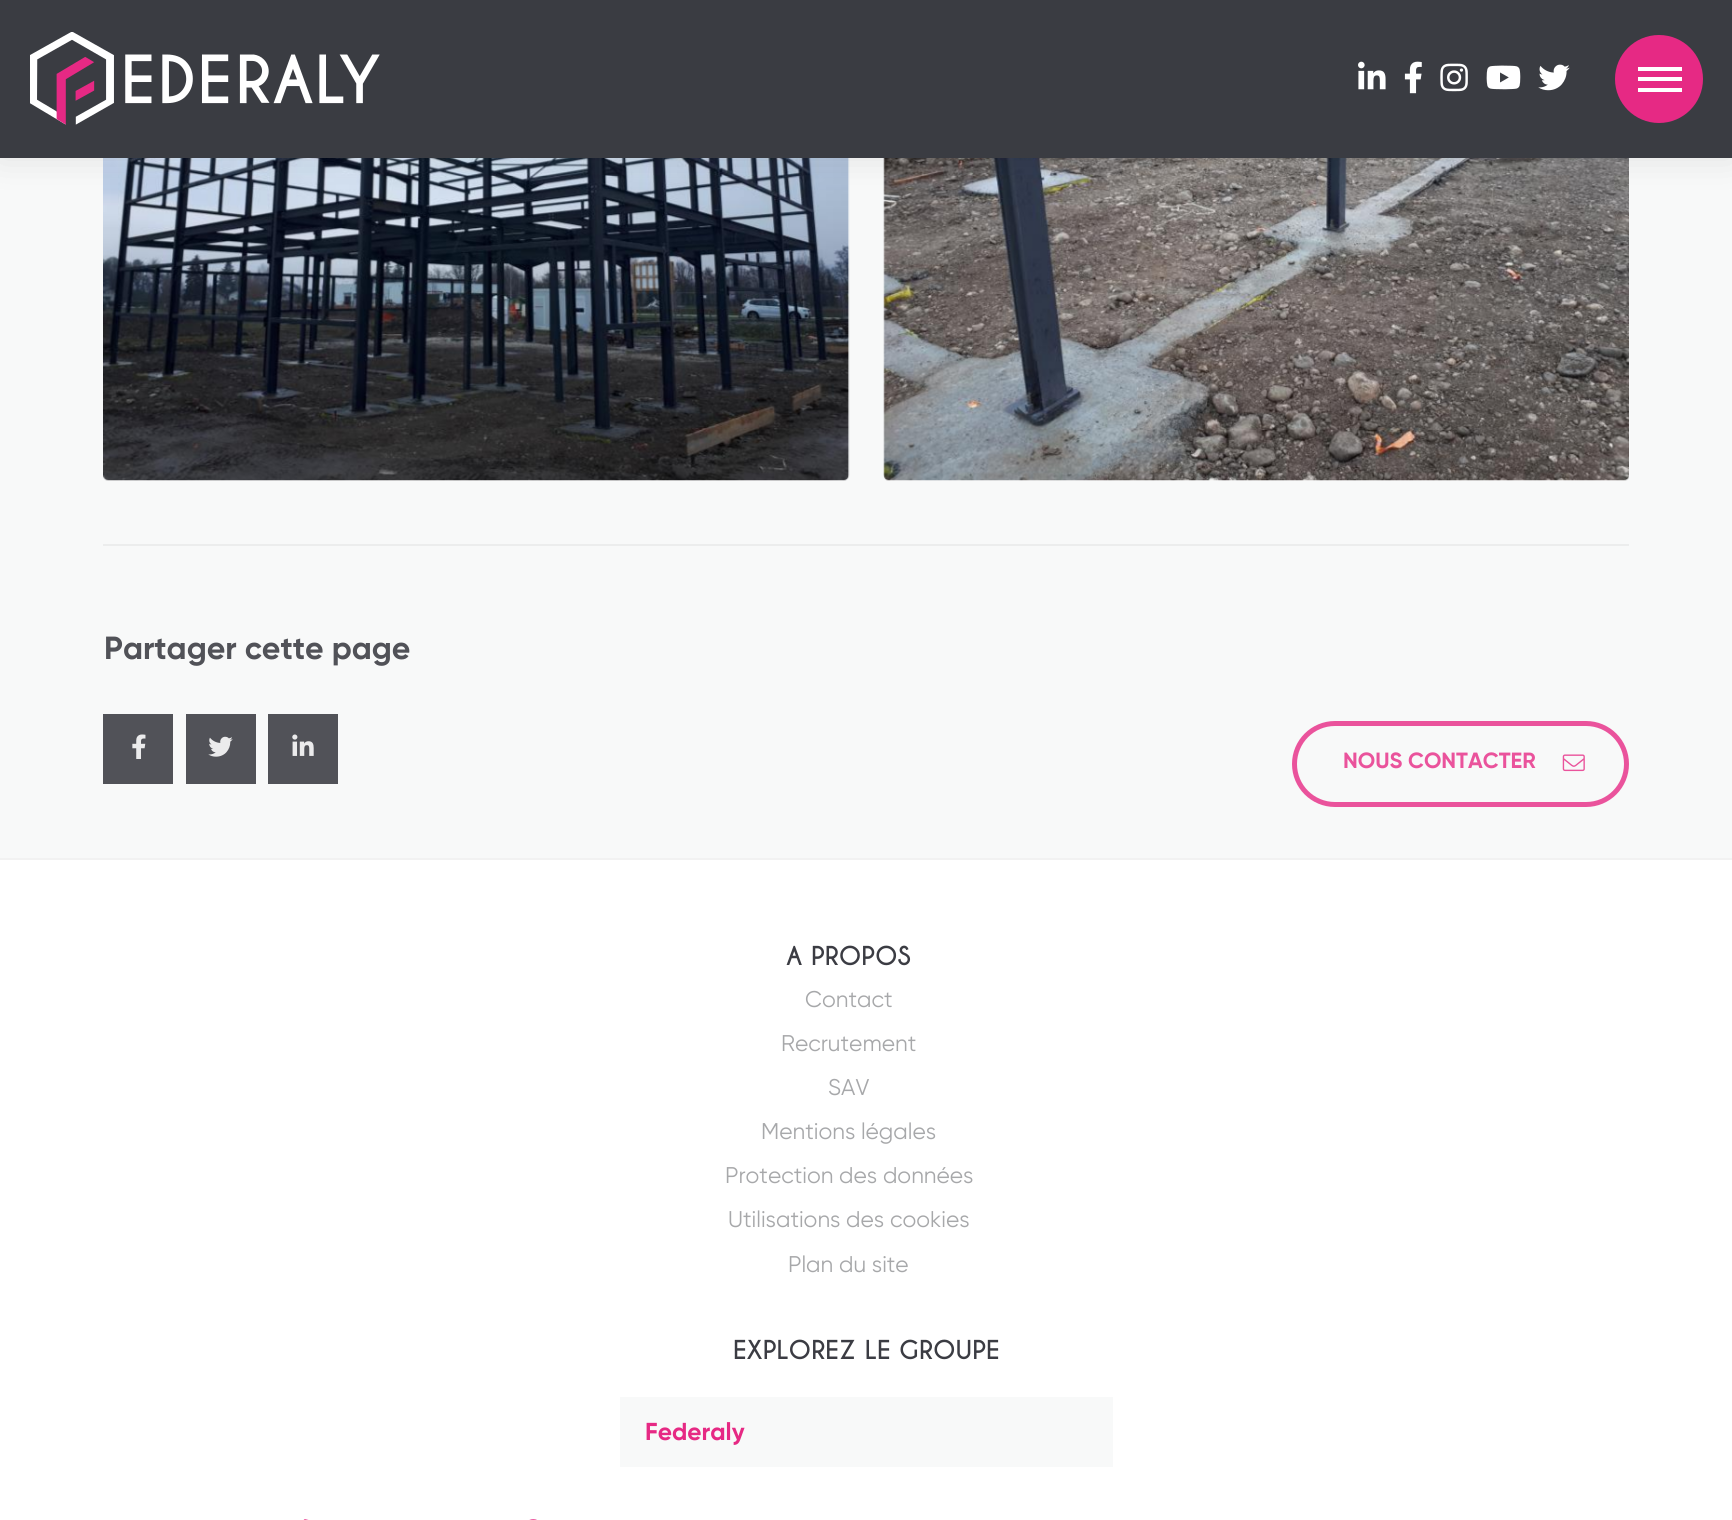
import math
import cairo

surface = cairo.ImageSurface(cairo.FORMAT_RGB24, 1732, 1520)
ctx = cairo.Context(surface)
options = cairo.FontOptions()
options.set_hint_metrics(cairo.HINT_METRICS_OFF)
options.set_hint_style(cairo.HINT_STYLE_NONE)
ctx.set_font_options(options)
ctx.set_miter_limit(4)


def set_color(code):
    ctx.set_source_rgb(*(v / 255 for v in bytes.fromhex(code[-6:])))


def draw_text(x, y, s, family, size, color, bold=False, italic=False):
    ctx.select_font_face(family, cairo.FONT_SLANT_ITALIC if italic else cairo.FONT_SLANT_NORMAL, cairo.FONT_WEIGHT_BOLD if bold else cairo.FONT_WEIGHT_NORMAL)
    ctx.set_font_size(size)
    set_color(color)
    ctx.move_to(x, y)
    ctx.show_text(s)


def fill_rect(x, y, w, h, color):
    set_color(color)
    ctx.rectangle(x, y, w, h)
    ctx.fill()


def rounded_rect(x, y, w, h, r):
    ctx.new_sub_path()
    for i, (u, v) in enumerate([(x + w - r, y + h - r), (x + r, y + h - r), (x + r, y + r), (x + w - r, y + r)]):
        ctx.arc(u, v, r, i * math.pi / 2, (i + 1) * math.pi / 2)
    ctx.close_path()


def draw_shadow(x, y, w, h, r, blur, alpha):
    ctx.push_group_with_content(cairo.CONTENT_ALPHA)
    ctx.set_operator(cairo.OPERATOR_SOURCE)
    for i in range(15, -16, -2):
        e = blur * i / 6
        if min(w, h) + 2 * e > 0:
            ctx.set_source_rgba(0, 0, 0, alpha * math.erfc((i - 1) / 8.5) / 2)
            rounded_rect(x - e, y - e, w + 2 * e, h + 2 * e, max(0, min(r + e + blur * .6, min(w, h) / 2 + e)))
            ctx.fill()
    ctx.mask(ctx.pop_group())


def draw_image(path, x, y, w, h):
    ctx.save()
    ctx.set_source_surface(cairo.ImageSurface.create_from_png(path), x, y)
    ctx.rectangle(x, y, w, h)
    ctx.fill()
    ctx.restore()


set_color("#ffffff")
ctx.paint()
fill_rect(0, 158, 1732, 700, "#f8f9f9")
draw_image("assets/img7.png", 103, 158, 747, 323)
draw_image("assets/img8.png", 883, 158, 746, 323)
set_color("#000000")
draw_shadow(0, 0, 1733, 158, 0, 17.5, 0.1)
fill_rect(0, 0, 1732, 158, "#3a3c42")
draw_image("assets/img1.png", 30, 32, 350, 93)
draw_image("assets/img2.png", 1358, 61, 28, 29)
draw_image("assets/img3.png", 1404, 61, 18, 33)
draw_image("assets/img4.png", 1440, 63, 28, 29)
draw_image("assets/img5.png", 1486, 65, 35, 25)
draw_image("assets/img6.png", 1538, 64, 32, 27)
set_color("#e62984")
ctx.arc(1659, 79, 44, 0, 2 * math.pi)
ctx.fill()
fill_rect(1638, 67, 44, 4, "#ffffff")
fill_rect(1638, 77, 44, 4, "#ffffff")
fill_rect(1638, 88, 44, 4, "#ffffff")
fill_rect(103, 544, 1526, 2, "#eceded")
draw_text(104, 659, "Partager cette page", "Gilroy", 32, "#515258", bold=True)
fill_rect(103, 714, 70, 70, "#515258")
draw_image("assets/img9.png", 132, 734, 14, 25)
fill_rect(186, 714, 70, 70, "#515258")
draw_image("assets/img10.png", 208, 736, 25, 21)
fill_rect(268, 714, 70, 70, "#515258")
draw_image("assets/img11.png", 292, 734, 22, 22)
rounded_rect(1294.5, 723.5, 332, 81, 40.5)
set_color("#ea539c")
ctx.set_line_width(5)
ctx.stroke()
draw_text(1343, 768, "NOUS CONTACTER", "Gilroy", 22, "#ea539c", bold=True)
draw_image("assets/img12.png", 1562, 754, 23, 18)
fill_rect(0, 858, 1732, 2, "#f2f2f2")
draw_text(786, 965, "A PROPOS", "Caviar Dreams", 24.5, "#3b3c43", bold=True)
draw_text(805, 1007, "Contact", "Gilroy", 22.75, "#a7a8aa")
draw_text(781, 1051, "Recrutement", "Gilroy", 22.75, "#a7a8aa")
draw_text(828, 1095, "SAV", "Gilroy", 22.75, "#a7a8aa")
draw_text(761, 1139, "Mentions légales", "Gilroy", 22.75, "#a7a8aa")
draw_text(725, 1183, "Protection des données", "Gilroy", 22.75, "#a7a8aa")
draw_text(728, 1227, "Utilisations des cookies", "Gilroy", 22.75, "#a7a8aa")
draw_text(788, 1272, "Plan du site", "Gilroy", 22.75, "#a7a8aa")
draw_text(733, 1359, "EXPLOREZ LE GROUPE", "Caviar Dreams", 24.5, "#3b3c43", bold=True)
fill_rect(620, 1397, 493, 70, "#f8f9f9")
draw_text(645, 1440, "Federaly", "Gilroy", 24.5, "#e62984", bold=True)
draw_image("assets/img13.png", 303, 1519, 6, 1)
draw_image("assets/img14.png", 529, 1519, 8, 1)
surface.write_to_png("output.png")
